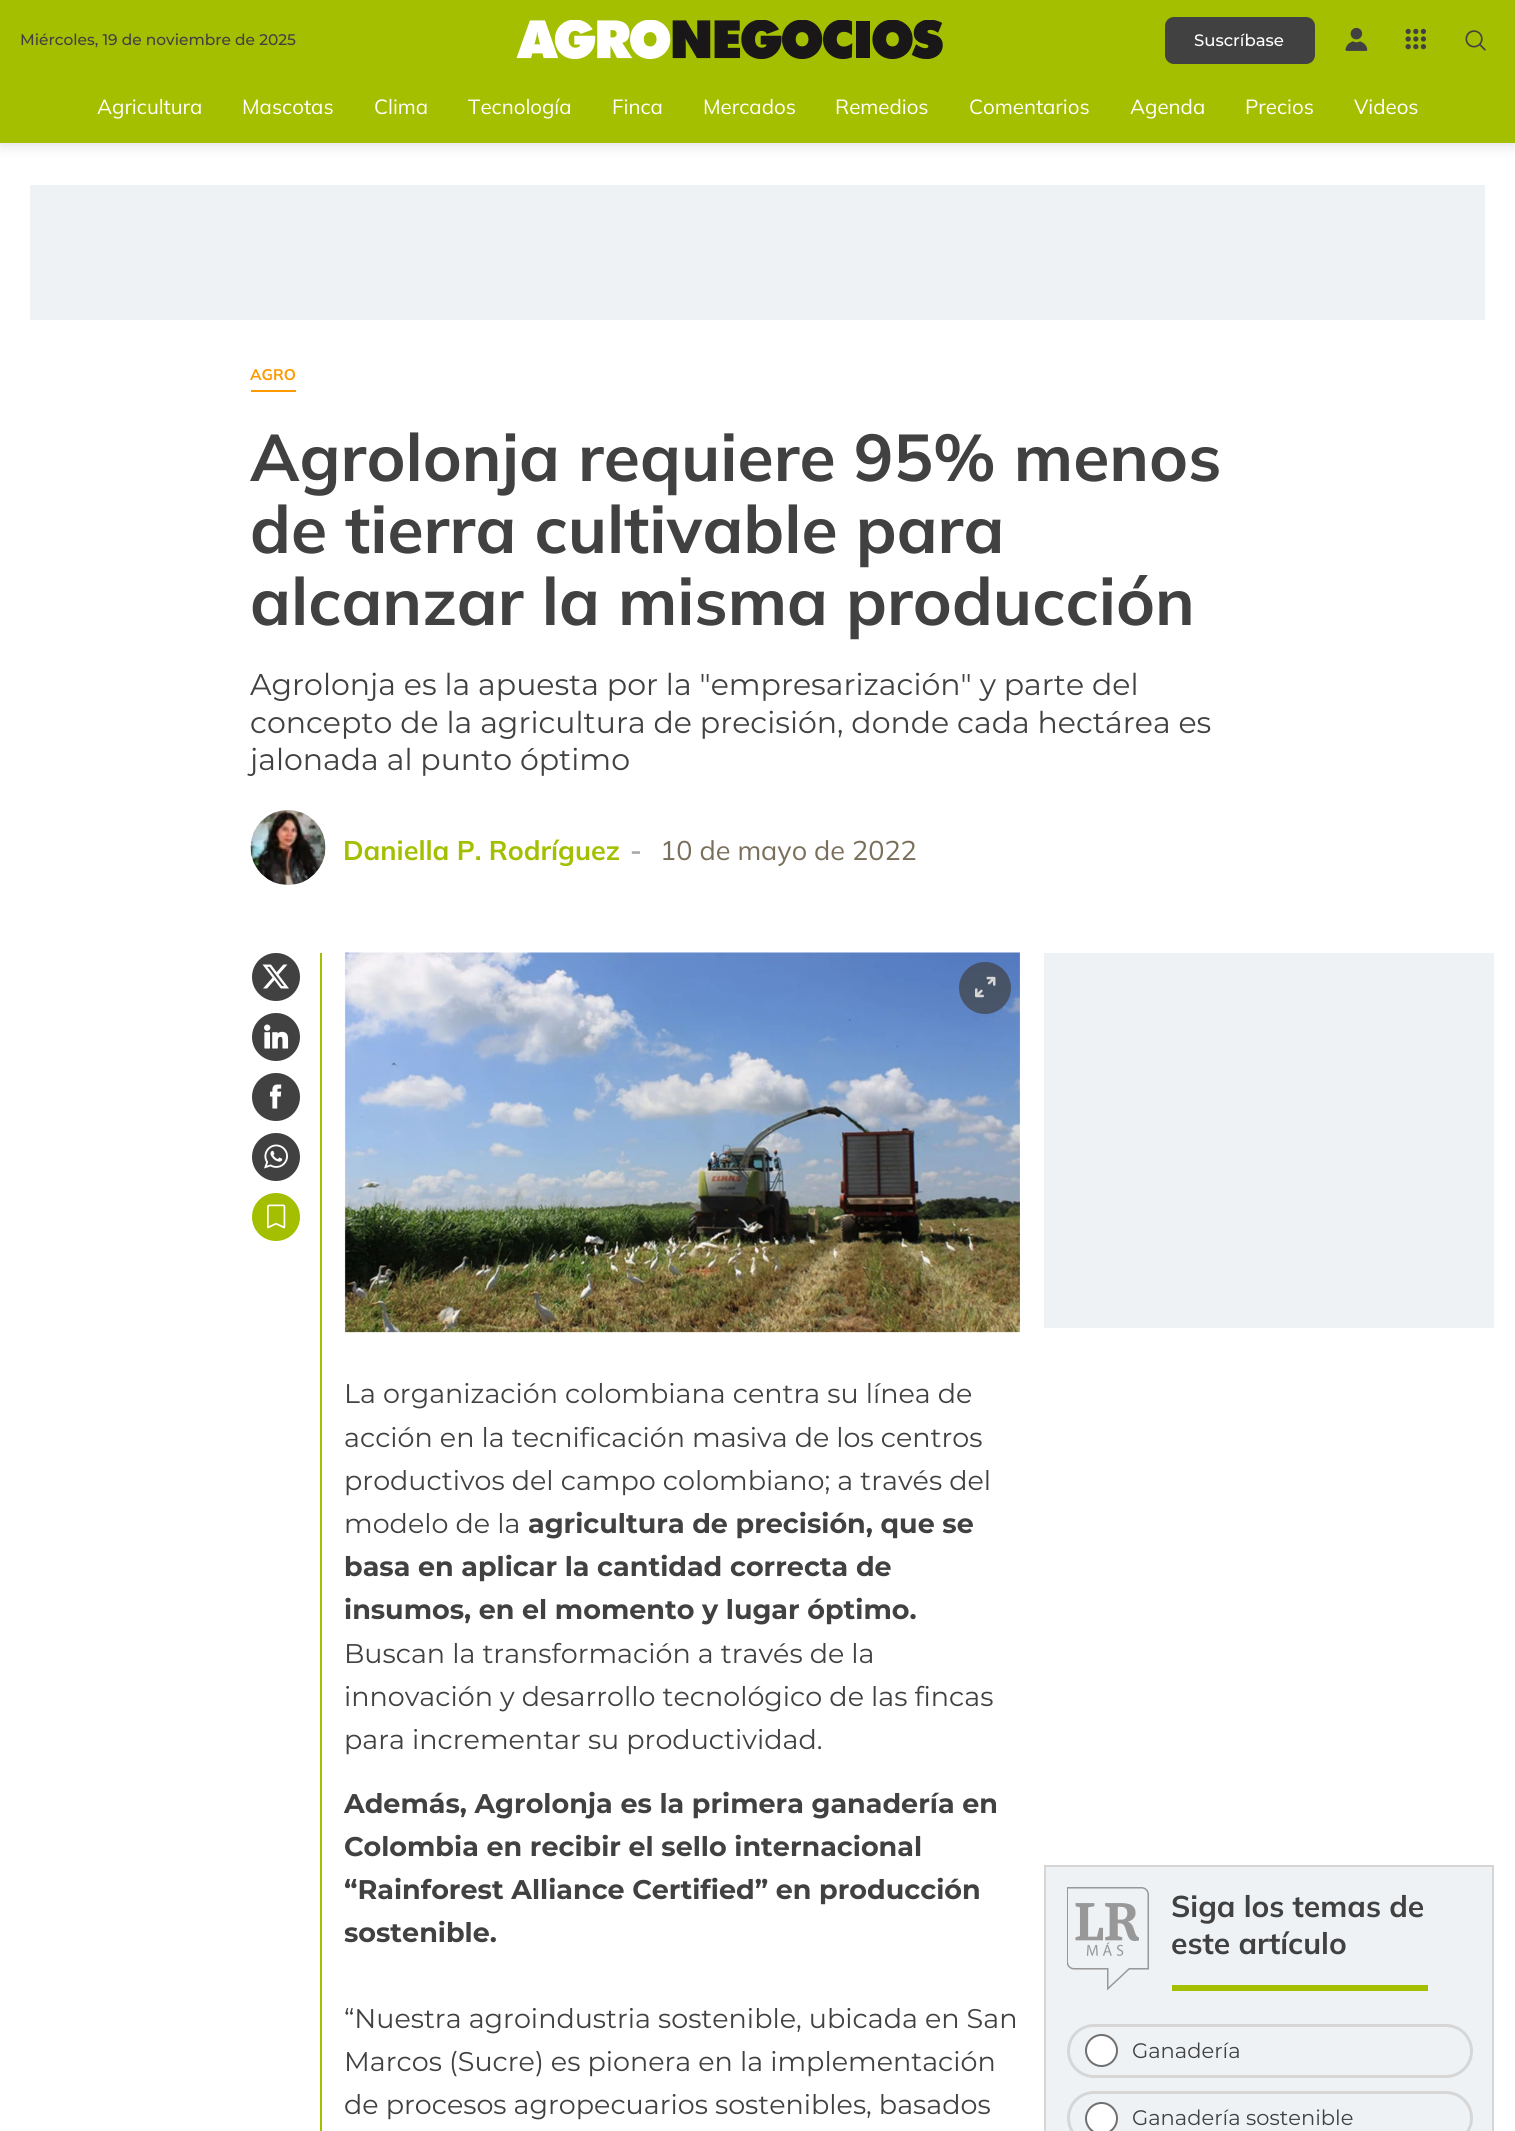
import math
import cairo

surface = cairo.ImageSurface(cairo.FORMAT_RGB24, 1515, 2131)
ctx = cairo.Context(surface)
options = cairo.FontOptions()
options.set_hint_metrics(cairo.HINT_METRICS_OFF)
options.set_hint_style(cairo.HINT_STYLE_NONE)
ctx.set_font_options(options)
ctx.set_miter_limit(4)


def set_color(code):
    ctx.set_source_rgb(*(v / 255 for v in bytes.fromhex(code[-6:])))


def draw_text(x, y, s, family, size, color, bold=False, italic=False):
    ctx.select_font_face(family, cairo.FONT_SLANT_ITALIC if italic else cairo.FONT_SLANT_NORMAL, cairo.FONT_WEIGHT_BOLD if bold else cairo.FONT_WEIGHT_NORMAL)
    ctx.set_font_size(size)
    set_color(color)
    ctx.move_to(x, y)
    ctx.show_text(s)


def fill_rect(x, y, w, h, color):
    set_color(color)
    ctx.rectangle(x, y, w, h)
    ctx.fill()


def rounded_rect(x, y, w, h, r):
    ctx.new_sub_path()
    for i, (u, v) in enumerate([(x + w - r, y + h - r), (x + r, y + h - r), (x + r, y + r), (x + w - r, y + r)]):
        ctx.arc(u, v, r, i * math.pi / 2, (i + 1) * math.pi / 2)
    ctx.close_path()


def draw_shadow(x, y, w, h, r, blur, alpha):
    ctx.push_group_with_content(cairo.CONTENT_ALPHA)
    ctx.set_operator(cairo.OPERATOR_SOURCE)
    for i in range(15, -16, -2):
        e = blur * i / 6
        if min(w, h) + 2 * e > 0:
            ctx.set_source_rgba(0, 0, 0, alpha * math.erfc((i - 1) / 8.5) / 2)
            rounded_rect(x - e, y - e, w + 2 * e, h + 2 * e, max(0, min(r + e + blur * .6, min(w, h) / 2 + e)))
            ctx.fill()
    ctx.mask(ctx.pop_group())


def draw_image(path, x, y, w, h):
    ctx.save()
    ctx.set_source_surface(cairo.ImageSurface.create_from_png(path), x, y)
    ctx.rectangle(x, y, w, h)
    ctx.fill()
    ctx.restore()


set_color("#ffffff")
ctx.paint()
set_color("#000000")
draw_shadow(0, 2, 1515, 142, 0, 7.5, 0.15)
fill_rect(0, 0, 1515, 143, "#a4bf00")
draw_text(20, 45, "Miércoles, 19 de noviembre de 2025", "Montserrat Medium", 15.4, "#414141")
draw_image("assets/img1.png", 516, 20, 427, 39)
rounded_rect(1164, 16, 152, 49, 10)
ctx.fill_preserve()
set_color("#a4bf00")
ctx.stroke()
draw_text(1194, 46, "Suscríbase", "Montserrat Medium", 16.5, "#ffffff")
draw_image("assets/img2.png", 1345, 27, 23, 24)
draw_image("assets/img3.png", 1405, 28, 21, 22)
draw_image("assets/img4.png", 1465, 30, 21, 21)
draw_text(97, 114, "Agricultura", "Mulish", 20.5, "#ffffff")
draw_text(242, 114, "Mascotas", "Mulish", 20.5, "#ffffff")
draw_text(374, 114, "Clima", "Mulish", 20.5, "#ffffff")
draw_text(468, 114, "Tecnología", "Mulish", 20.5, "#ffffff")
draw_text(612, 114, "Finca", "Mulish", 20.5, "#ffffff")
draw_text(703, 114, "Mercados", "Mulish", 20.5, "#ffffff")
draw_text(835, 114, "Remedios", "Mulish", 20.5, "#ffffff")
draw_text(969, 114, "Comentarios", "Mulish", 20.5, "#ffffff")
draw_text(1130, 114, "Agenda", "Mulish", 20.5, "#ffffff")
draw_text(1245, 114, "Precios", "Mulish", 20.5, "#ffffff")
draw_text(1354, 114, "Videos", "Mulish", 20.5, "#ffffff")
fill_rect(30, 185, 1455, 135, "#eff2f5")
fill_rect(251, 390, 45, 2, "#ff9900")
draw_text(250, 380, "AGRO", "Mulish", 15.4, "#ff9900", bold=True)
draw_text(250, 481, "Agrolonja requiere 95% menos", "Mulish", 66, "#414141", bold=True)
draw_text(250, 553, "de tierra cultivable para", "Mulish", 66, "#414141", bold=True)
draw_text(250, 625, "alcanzar la misma producción", "Mulish", 66, "#414141", bold=True)
draw_text(250, 695, "Agrolonja es la apuesta por la \"empresarización\" y parte del", "Montserrat", 30, "#414141")
draw_text(250, 733, "concepto de la agricultura de precisión, donde cada hectárea es", "Montserrat", 30, "#414141")
draw_text(250, 770, "jalonada al punto óptimo", "Montserrat", 30, "#414141")
draw_image("assets/img5.png", 250, 810, 76, 75)
draw_text(343, 860, "Daniella P. Rodríguez", "Mulish", 27, "#a4bf00", bold=True)
draw_text(630, 860, "-", "Mulish", 27, "#aaaaaa", bold=True)
draw_text(660, 860, "10 de mayo de 2022", "Mulish", 27, "#7a6f5b")
fill_rect(320, 953, 2, 1178, "#a4bf00")
set_color("#414141")
ctx.new_path()
ctx.arc(276, 977, 24, 0, 2 * math.pi)
ctx.fill()
draw_image("assets/img6.png", 262, 964, 27, 25)
ctx.arc(276, 1037, 24, 0, 2 * math.pi)
ctx.fill()
draw_image("assets/img7.png", 264, 1024, 25, 25)
ctx.arc(276, 1097, 24, 0, 2 * math.pi)
ctx.fill()
draw_image("assets/img8.png", 270, 1084, 12, 25)
ctx.arc(276, 1157, 24, 0, 2 * math.pi)
ctx.fill()
draw_image("assets/img9.png", 264, 1144, 24, 25)
set_color("#a4bf00")
ctx.arc(276, 1217, 24, 0, 2 * math.pi)
ctx.fill()
draw_image("assets/img10.png", 267, 1204, 19, 25)
draw_image("assets/img11.png", 344, 952, 676, 381)
ctx.set_source_rgba(0.255, 0.255, 0.255, 0.7)
ctx.arc(985, 988, 26, 0, 2 * math.pi)
ctx.fill()
draw_image("assets/img12.png", 975, 976, 21, 22)
draw_text(344, 1403, "La organización colombiana centra su línea de", "Montserrat", 27, "#414141")
draw_text(344, 1447, "acción en la tecnificación masiva de los centros", "Montserrat", 27, "#414141")
draw_text(344, 1490, "productivos del campo colombiano; a través del", "Montserrat", 27, "#414141")
draw_text(344, 1533, "modelo de la", "Montserrat", 27, "#414141")
draw_text(528, 1533, "agricultura de precisión, que se", "Montserrat", 27, "#414141", bold=True)
draw_text(344, 1576, "basa en aplicar la cantidad correcta de", "Montserrat", 27, "#414141", bold=True)
draw_text(344, 1619, "insumos, en el momento y lugar óptimo.", "Montserrat", 27, "#414141", bold=True)
draw_text(344, 1663, "Buscan la transformación a través de la", "Montserrat", 27, "#414141")
draw_text(344, 1706, "innovación y desarrollo tecnológico de las fincas", "Montserrat", 27, "#414141")
draw_text(344, 1749, "para incrementar su productividad.", "Montserrat", 27, "#414141")
draw_text(344, 1813, "Además, Agrolonja es la primera ganadería en", "Montserrat", 27, "#414141", bold=True)
draw_text(344, 1856, "Colombia en recibir el sello internacional", "Montserrat", 27, "#414141", bold=True)
draw_text(344, 1899, "“Rainforest Alliance Certified” en producción", "Montserrat", 27, "#414141", bold=True)
draw_text(344, 1942, "sostenible.", "Montserrat", 27, "#414141", bold=True)
draw_text(344, 2028, "“Nuestra agroindustria sostenible, ubicada en San", "Montserrat", 27, "#414141")
draw_text(344, 2071, "Marcos (Sucre) es pionera en la implementación", "Montserrat", 27, "#414141")
draw_text(344, 2114, "de procesos agropecuarios sostenibles, basados", "Montserrat", 27, "#414141")
fill_rect(1044, 953, 450, 375, "#eff2f5")
ctx.rectangle(1045, 1866, 448, 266)
ctx.fill_preserve()
set_color("#d6d6d6")
ctx.stroke()
draw_image("assets/img13.png", 1067, 1887, 82, 104)
fill_rect(1172, 1985, 256, 6, "#a4bf00")
draw_text(1171, 1917, "Siga los temas de", "Mulish", 30, "#414141", bold=True)
draw_text(1171, 1954, "este artículo", "Mulish", 30, "#414141", bold=True)
rounded_rect(1068.5, 2025.5, 403, 51, 25.5)
set_color("#d6d6d6")
ctx.set_line_width(3)
ctx.stroke()
set_color("#ffffff")
ctx.arc(1101.5, 2050.5, 15.5, 0, 2 * math.pi)
ctx.fill_preserve()
set_color("#707070")
ctx.set_line_width(2)
ctx.stroke()
draw_text(1132, 2058, "Ganadería", "Montserrat", 21, "#414141")
rounded_rect(1068.5, 2092.5, 403, 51, 25.5)
set_color("#d6d6d6")
ctx.set_line_width(3)
ctx.stroke()
set_color("#ffffff")
ctx.arc(1101.5, 2118.5, 15.5, 0, 2 * math.pi)
ctx.fill_preserve()
set_color("#707070")
ctx.set_line_width(2)
ctx.stroke()
draw_text(1132, 2125, "Ganadería sostenible", "Montserrat", 21, "#414141")
surface.write_to_png("output.png")
